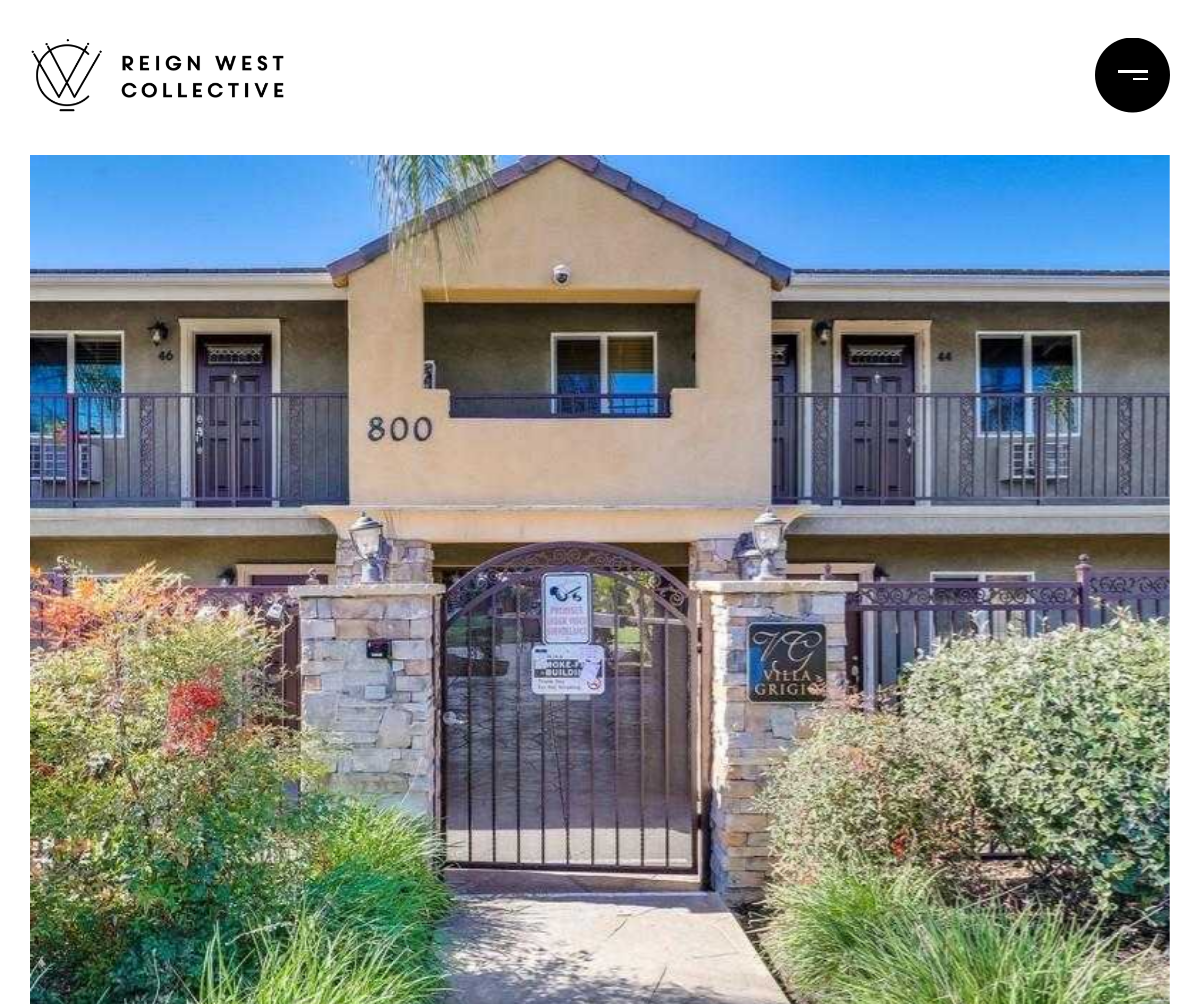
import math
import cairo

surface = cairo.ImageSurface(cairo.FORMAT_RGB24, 1200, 1004)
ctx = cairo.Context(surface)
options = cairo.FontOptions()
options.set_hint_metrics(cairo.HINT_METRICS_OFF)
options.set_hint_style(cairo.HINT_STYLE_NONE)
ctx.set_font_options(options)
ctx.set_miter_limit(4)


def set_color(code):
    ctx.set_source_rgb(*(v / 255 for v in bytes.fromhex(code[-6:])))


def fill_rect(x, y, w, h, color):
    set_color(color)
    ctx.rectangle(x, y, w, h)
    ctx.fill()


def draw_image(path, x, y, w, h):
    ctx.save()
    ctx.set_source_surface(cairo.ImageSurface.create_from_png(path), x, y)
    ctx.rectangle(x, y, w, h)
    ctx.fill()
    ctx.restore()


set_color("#ffffff")
ctx.paint()
draw_image("assets/img1.png", 31, 39, 253, 73)
ctx.save()
ctx.rectangle(1095, 38, 75, 75)
ctx.clip()
set_color("#000000")
ctx.arc(1132.5, 75, 37.5, 0, 2 * math.pi)
ctx.fill()
ctx.restore()
fill_rect(1118, 70, 30, 3, "#ffffff")
fill_rect(1133, 78, 15, 2, "#ffffff")
fill_rect(1169, 155, 1, 849, "#f2f2f2")
draw_image("assets/img2.png", 30, 155, 1140, 849)
surface.write_to_png("output.png")
